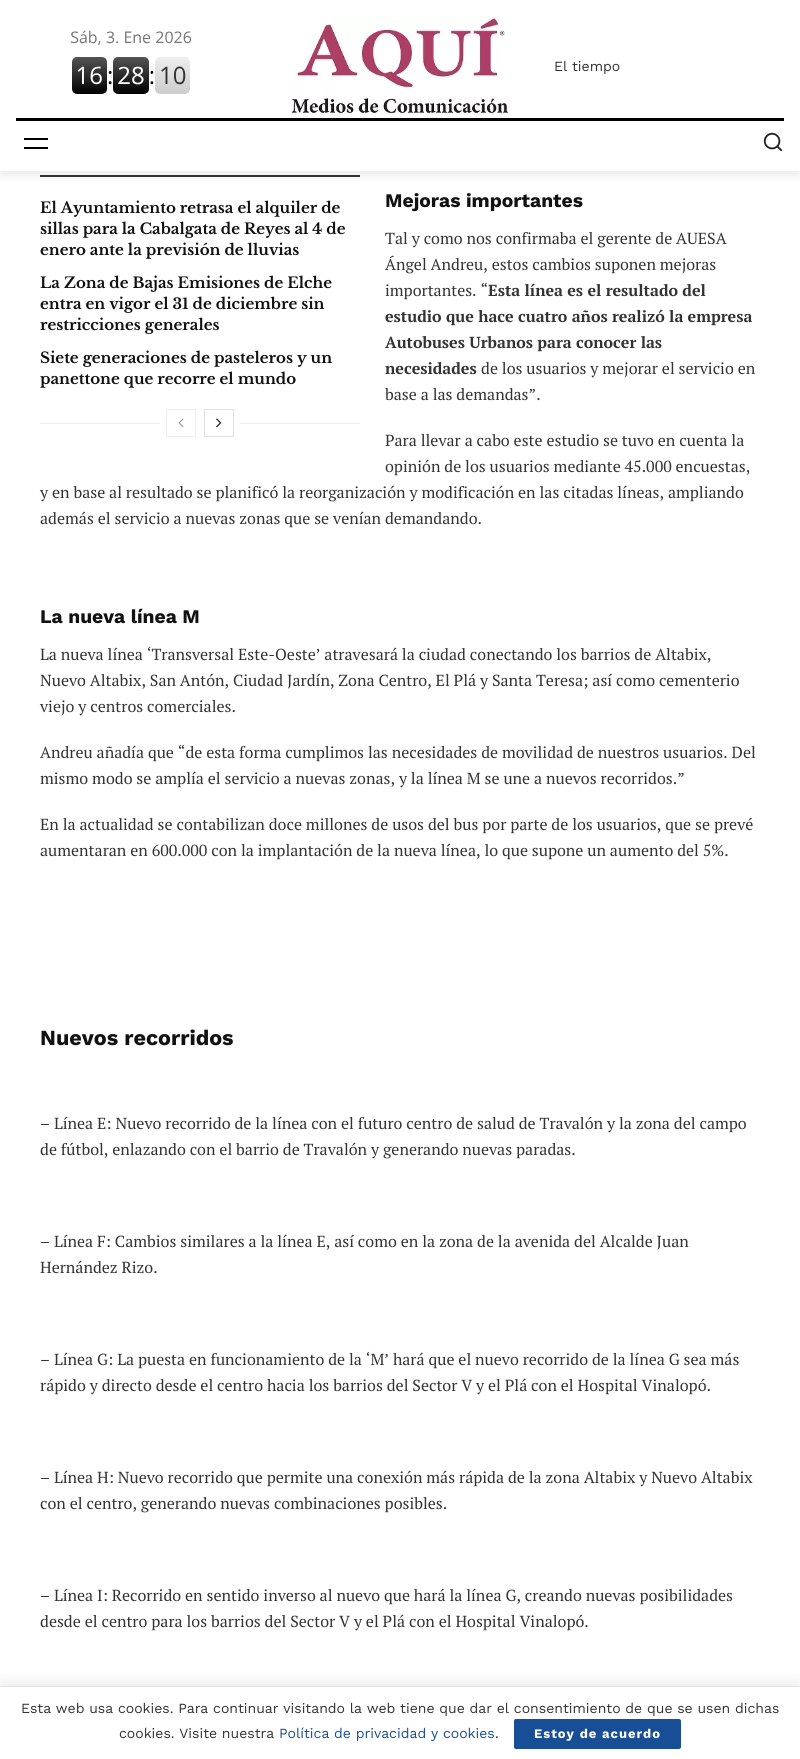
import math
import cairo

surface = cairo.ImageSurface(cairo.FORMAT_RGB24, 800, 1759)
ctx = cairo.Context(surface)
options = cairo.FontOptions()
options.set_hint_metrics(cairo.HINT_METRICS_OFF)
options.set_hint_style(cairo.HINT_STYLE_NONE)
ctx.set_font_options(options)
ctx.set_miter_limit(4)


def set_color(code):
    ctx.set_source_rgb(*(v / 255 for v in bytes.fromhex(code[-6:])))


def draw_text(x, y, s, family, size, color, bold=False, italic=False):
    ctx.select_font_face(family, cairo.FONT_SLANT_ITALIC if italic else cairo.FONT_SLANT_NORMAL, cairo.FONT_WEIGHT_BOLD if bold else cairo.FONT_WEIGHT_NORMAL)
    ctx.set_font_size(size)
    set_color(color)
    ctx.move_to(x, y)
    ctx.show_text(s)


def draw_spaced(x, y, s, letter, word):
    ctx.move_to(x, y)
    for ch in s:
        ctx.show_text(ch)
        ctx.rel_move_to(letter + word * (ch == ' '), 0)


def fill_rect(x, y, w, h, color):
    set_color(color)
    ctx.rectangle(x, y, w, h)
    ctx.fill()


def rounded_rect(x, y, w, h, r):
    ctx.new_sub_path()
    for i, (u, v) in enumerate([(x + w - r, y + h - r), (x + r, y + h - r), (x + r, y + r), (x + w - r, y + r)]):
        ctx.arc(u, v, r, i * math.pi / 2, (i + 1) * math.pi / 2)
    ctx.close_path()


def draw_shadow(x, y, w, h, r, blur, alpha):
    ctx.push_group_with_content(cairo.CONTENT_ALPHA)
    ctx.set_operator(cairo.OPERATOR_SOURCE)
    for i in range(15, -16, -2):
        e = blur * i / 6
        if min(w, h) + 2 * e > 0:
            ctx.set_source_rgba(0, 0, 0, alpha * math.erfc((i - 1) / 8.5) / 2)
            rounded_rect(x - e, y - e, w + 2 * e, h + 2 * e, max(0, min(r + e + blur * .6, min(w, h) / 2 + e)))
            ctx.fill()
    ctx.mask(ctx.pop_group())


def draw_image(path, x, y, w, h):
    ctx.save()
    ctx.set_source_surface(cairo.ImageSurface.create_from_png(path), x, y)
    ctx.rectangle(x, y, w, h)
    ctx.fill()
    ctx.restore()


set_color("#ffffff")
ctx.paint()
fill_rect(40, 175, 320, 2, "#333333")
set_color("#000000")
draw_shadow(0, 5, 800, 171, 0, 5, 0.08)
fill_rect(0, 0, 800, 171, "#ffffff")
draw_image("assets/img1.png", 71, 30, 121, 64)
draw_image("assets/img2.png", 291, 16, 218, 99)
draw_text(554, 71, "El tiempo", "Work Sans", 14, "#333333")
fill_rect(16, 118, 768, 3, "#000000")
fill_rect(24, 138, 24, 2, "#000000")
fill_rect(24, 147, 24, 2, "#000000")
draw_image("assets/img3.png", 763, 132, 20, 20)
draw_text(40, 213, "El Ayuntamiento retrasa el alquiler de", "Libre Baskerville", 15, "#111111", bold=True)
draw_text(40, 234, "sillas para la Cabalgata de Reyes al 4 de", "Libre Baskerville", 15, "#111111", bold=True)
draw_text(40, 255, "enero ante la previsión de lluvias", "Libre Baskerville", 15, "#111111", bold=True)
draw_text(40, 288, "La Zona de Bajas Emisiones de Elche", "Libre Baskerville", 15, "#111111", bold=True)
draw_text(40, 309, "entra en vigor el 31 de diciembre sin", "Libre Baskerville", 15, "#111111", bold=True)
draw_text(40, 330, "restricciones generales", "Libre Baskerville", 15, "#111111", bold=True)
draw_text(40, 363, "Siete generaciones de pasteleros y un", "Libre Baskerville", 15, "#111111", bold=True)
draw_text(40, 384, "panettone que recorre el mundo", "Libre Baskerville", 15, "#111111", bold=True)
fill_rect(40, 423, 120, 1, "#eeeeee")
ctx.rectangle(166.5, 409.5, 29, 27)
ctx.set_line_width(1)
ctx.stroke()
draw_image("assets/img4.png", 178, 418, 6, 10)
ctx.rectangle(204.5, 409.5, 29, 27)
set_color("#e0e0e0")
ctx.stroke()
draw_image("assets/img5.png", 216, 418, 6, 10)
fill_rect(240, 423, 120, 1, "#eeeeee")
draw_text(385, 207, "Mejoras importantes", "Work Sans", 19.25, "#111111", bold=True)
draw_text(385, 244, "Tal y como nos confirmaba el gerente de AUESA", "PT Serif", 16, "#333333")
draw_text(385, 270, "Ángel Andreu, estos cambios suponen mejoras", "PT Serif", 16, "#333333")
draw_text(385, 296, "importantes. “", "PT Serif", 16, "#333333")
draw_text(488, 296, "Esta línea es el resultado del", "PT Serif", 16, "#333333", bold=True)
draw_text(385, 322, "estudio que hace cuatro años realizó la empresa", "PT Serif", 16, "#333333", bold=True)
draw_text(385, 348, "Autobuses Urbanos para conocer las", "PT Serif", 16, "#333333", bold=True)
draw_text(385, 374, "necesidades", "PT Serif", 16, "#333333", bold=True)
draw_text(481, 374, "de los usuarios y mejorar el servicio en", "PT Serif", 16, "#333333")
draw_text(385, 400, "base a las demandas”.", "PT Serif", 16, "#333333")
draw_text(385, 446, "Para llevar a cabo este estudio se tuvo en cuenta la", "PT Serif", 16, "#333333")
draw_text(385, 472, "opinión de los usuarios mediante 45.000 encuestas,", "PT Serif", 16, "#333333")
draw_text(40, 498, "y en base al resultado se planificó la reorganización y modificación en las citadas líneas, ampliando", "PT Serif", 16, "#333333")
draw_text(40, 524, "además el servicio a nuevas zonas que se venían demandando.", "PT Serif", 16, "#333333")
draw_text(40, 623, "La nueva línea M", "Work Sans", 19.25, "#111111", bold=True)
draw_text(40, 660, "La nueva línea ‘Transversal Este-Oeste’ atravesará la ciudad conectando los barrios de Altabix,", "PT Serif", 16, "#333333")
draw_text(40, 686, "Nuevo Altabix, San Antón, Ciudad Jardín, Zona Centro, El Plá y Santa Teresa; así como cementerio", "PT Serif", 16, "#333333")
draw_text(40, 712, "viejo y centros comerciales.", "PT Serif", 16, "#333333")
draw_text(40, 758, "Andreu añadía que “de esta forma cumplimos las necesidades de movilidad de nuestros usuarios. Del", "PT Serif", 16, "#333333")
draw_text(40, 784, "mismo modo se amplía el servicio a nuevas zonas, y la línea M se une a nuevos recorridos.”", "PT Serif", 16, "#333333")
draw_text(40, 830, "En la actualidad se contabilizan doce millones de usos del bus por parte de los usuarios, que se prevé", "PT Serif", 16, "#333333")
draw_text(40, 856, "aumentaran en 600.000 con la implantación de la nueva línea, lo que supone un aumento del 5%.", "PT Serif", 16, "#333333")
draw_text(40, 1045, "Nuevos recorridos", "Work Sans", 21.5, "#111111", bold=True)
draw_text(40, 1129, "– Línea E: Nuevo recorrido de la línea con el futuro centro de salud de Travalón y la zona del campo", "PT Serif", 16, "#333333")
draw_text(40, 1155, "de fútbol, enlazando con el barrio de Travalón y generando nuevas paradas.", "PT Serif", 16, "#333333")
draw_text(40, 1247, "– Línea F: Cambios similares a la línea E, así como en la zona de la avenida del Alcalde Juan", "PT Serif", 16, "#333333")
draw_text(40, 1273, "Hernández Rizo.", "PT Serif", 16, "#333333")
draw_text(40, 1365, "– Línea G: La puesta en funcionamiento de la ‘M’ hará que el nuevo recorrido de la línea G sea más", "PT Serif", 16, "#333333")
draw_text(40, 1391, "rápido y directo desde el centro hacia los barrios del Sector V y el Plá con el Hospital Vinalopó.", "PT Serif", 16, "#333333")
draw_text(40, 1483, "– Línea H: Nuevo recorrido que permite una conexión más rápida de la zona Altabix y Nuevo Altabix", "PT Serif", 16, "#333333")
draw_text(40, 1509, "con el centro, generando nuevas combinaciones posibles.", "PT Serif", 16, "#333333")
draw_text(40, 1601, "– Línea I: Recorrido en sentido inverso al nuevo que hará la línea G, creando nuevas posibilidades", "PT Serif", 16, "#333333")
draw_text(40, 1627, "desde el centro para los barrios del Sector V y el Plá con el Hospital Vinalopó.", "PT Serif", 16, "#333333")
set_color("#000000")
draw_shadow(0, 1689, 800, 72, 0, 10, 0.15)
draw_shadow(0, 1687, 800, 72, 0, 0.5, 0.2)
fill_rect(0, 1687, 800, 72, "#ffffff")
draw_text(21, 1713, "Esta web usa cookies. Para continuar visitando la web tiene que dar el consentimiento de que se usen dichas", "Work Sans", 14, "#333333")
draw_text(119, 1738, "cookies. Visite nuestra", "Work Sans", 14, "#333333")
draw_text(279, 1738, "Política de privacidad y cookies", "Work Sans", 14, "#174e96")
draw_text(495, 1738, ".", "Work Sans", 14, "#333333")
set_color("#174e96")
rounded_rect(514, 1719, 167, 30, 2)
ctx.fill()
ctx.select_font_face("Work Sans", cairo.FONT_SLANT_NORMAL, cairo.FONT_WEIGHT_BOLD)
ctx.set_font_size(13)
set_color("#ffffff")
draw_spaced(534, 1738, "Estoy de acuerdo", 1, 0)
surface.write_to_png("output.png")
